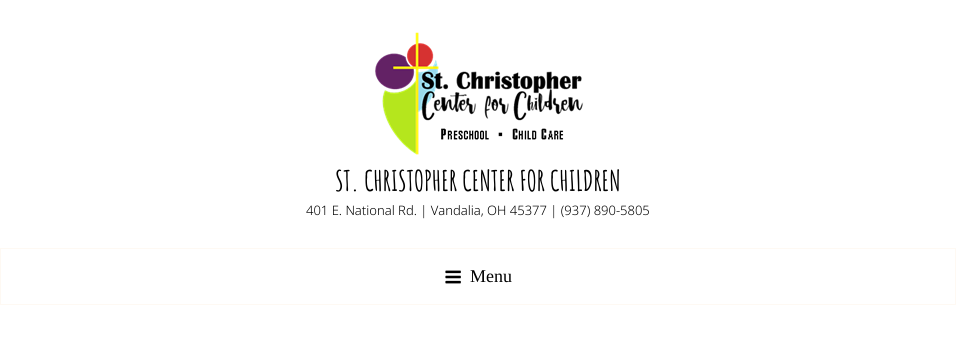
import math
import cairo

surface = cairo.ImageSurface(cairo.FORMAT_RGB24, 956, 337)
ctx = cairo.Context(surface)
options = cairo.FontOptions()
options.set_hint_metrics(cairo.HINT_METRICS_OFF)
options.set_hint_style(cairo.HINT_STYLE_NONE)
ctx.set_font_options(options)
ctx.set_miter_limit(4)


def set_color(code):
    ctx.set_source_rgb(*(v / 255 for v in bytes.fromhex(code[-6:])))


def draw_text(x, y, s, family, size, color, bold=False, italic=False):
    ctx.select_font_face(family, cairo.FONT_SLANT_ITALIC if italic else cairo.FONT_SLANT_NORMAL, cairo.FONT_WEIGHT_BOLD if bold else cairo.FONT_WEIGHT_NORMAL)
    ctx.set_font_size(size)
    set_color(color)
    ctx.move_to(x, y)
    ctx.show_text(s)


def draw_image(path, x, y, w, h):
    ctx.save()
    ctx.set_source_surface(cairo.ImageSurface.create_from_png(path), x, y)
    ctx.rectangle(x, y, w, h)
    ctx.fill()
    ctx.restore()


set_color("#ffffff")
ctx.paint()
draw_image("assets/img1.png", 375, 32, 209, 123)
draw_text(335, 191, "ST. CHRISTOPHER CENTER FOR CHILDREN", "Amatic SC", 28, "#000000", bold=True)
draw_text(306, 215, "401 E. National Rd. | Vandalia, OH 45377 | (937) 890-5805", "Noto Sans Light", 13, "#000000")
ctx.rectangle(0.5, 248.5, 955, 56)
set_color("#fef9f3")
ctx.set_line_width(1)
ctx.stroke()
draw_image("assets/img2.png", 445, 270, 16, 14)
draw_text(470, 282, "Menu", "Liberation Serif", 18, "#000000")
surface.write_to_png("output.png")
